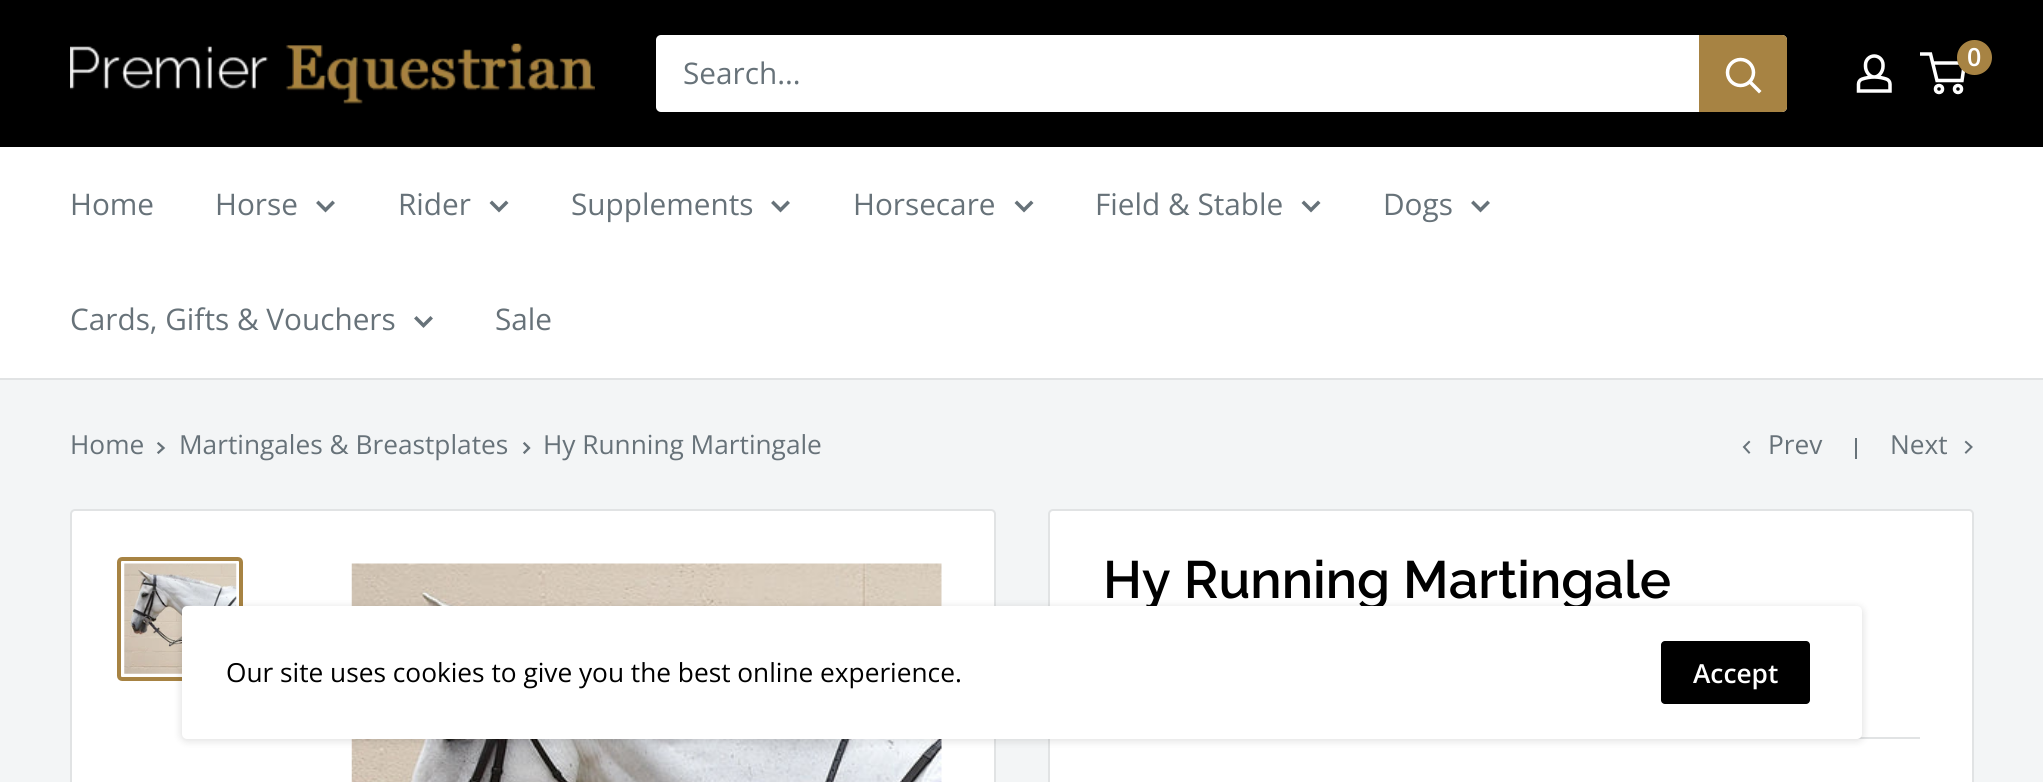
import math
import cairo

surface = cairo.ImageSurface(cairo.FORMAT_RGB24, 2043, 782)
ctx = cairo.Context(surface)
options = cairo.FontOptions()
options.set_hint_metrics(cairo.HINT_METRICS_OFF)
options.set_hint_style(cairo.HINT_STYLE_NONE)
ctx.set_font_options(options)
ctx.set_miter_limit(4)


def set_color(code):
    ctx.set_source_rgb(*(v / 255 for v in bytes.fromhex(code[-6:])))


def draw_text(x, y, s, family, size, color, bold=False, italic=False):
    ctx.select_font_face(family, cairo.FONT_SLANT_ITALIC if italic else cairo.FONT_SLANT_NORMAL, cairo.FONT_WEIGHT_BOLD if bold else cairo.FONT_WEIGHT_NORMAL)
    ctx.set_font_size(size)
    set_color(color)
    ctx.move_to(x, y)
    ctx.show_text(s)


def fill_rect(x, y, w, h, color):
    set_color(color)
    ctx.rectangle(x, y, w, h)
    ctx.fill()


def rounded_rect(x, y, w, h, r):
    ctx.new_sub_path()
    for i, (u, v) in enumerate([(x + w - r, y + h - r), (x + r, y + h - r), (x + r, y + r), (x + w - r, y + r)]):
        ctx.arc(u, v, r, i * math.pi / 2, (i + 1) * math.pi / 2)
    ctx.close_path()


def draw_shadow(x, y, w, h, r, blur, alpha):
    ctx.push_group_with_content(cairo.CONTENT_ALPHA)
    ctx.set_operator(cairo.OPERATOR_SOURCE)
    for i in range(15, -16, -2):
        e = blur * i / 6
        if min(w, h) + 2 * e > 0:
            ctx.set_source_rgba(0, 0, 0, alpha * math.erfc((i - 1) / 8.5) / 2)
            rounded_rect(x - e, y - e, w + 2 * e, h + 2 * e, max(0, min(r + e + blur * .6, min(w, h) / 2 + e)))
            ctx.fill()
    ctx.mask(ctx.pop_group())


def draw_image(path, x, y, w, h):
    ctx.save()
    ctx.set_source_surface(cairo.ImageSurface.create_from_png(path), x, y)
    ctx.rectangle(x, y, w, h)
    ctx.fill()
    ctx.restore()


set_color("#f3f5f6")
ctx.paint()
fill_rect(0, 0, 2043, 147, "#000000")
draw_image("assets/img1.png", 70, 43, 525, 61)
draw_image("assets/img2.png", 1856, 54, 36, 39)
ctx.arc(1939, 89, 3.5, 0, 2 * math.pi)
set_color("#ffffff")
ctx.set_line_width(3.5)
ctx.stroke()
ctx.arc(1958, 89, 3.5, 0, 2 * math.pi)
ctx.stroke()
ctx.new_path()
ctx.move_to(1932.5, 63)
ctx.line_to(1964.5, 63)
ctx.line_to(1962, 80.5)
ctx.line_to(1937, 80.5)
ctx.line_to(1930.5, 54)
ctx.line_to(1920, 54)
ctx.stroke()
set_color("#a78343")
ctx.arc(1974.5, 57.5, 17.5, 0, 2 * math.pi)
ctx.fill()
draw_text(1967, 66, "0", "Open Sans SemiBold", 25, "#ffffff")
rounded_rect(656, 35, 1131, 77, 5)
ctx.fill()
draw_text(683, 84, "Search...", "Open Sans", 29.75, "#677279")
set_color("#a78343")
ctx.new_path()
ctx.move_to(1699, 35)
ctx.line_to(1782, 35)
ctx.curve_to(1785, 35, 1787, 37, 1787, 40)
ctx.line_to(1787, 107)
ctx.curve_to(1787, 110, 1785, 112, 1782, 112)
ctx.line_to(1699, 112)
ctx.close_path()
ctx.fill()
ctx.new_path()
ctx.move_to(1759, 91)
ctx.line_to(1750, 82)
set_color("#ffffff")
ctx.set_line_cap(cairo.LINE_CAP_SQUARE)
ctx.stroke()
ctx.arc(1740.5, 72.5, 13, 0, 2 * math.pi)
ctx.set_line_cap(cairo.LINE_CAP_BUTT)
ctx.stroke()
fill_rect(0, 147, 2043, 231, "#ffffff")
fill_rect(0, 378, 2043, 2, "#e1e3e4")
draw_text(70, 215, "Home", "Open Sans", 29.75, "#677279")
draw_text(215, 215, "Horse", "Open Sans", 29.75, "#677279")
ctx.new_path()
ctx.move_to(332.5, 203)
ctx.line_to(325.5, 210)
ctx.line_to(318.5, 203)
ctx.set_line_cap(cairo.LINE_CAP_SQUARE)
ctx.stroke()
draw_text(398, 215, "Rider", "Open Sans", 29.75, "#677279")
ctx.new_path()
ctx.move_to(506, 203)
ctx.line_to(499, 210)
ctx.line_to(492, 203)
ctx.stroke()
draw_text(571, 215, "Supplements", "Open Sans", 29.75, "#677279")
ctx.new_path()
ctx.move_to(787.5, 203)
ctx.line_to(780.5, 210)
ctx.line_to(773.5, 203)
ctx.stroke()
draw_text(853, 215, "Horsecare", "Open Sans", 29.75, "#677279")
ctx.new_path()
ctx.move_to(1031, 203)
ctx.line_to(1024, 210)
ctx.line_to(1017, 203)
ctx.stroke()
draw_text(1095, 215, "Field & Stable", "Open Sans", 29.75, "#677279")
ctx.new_path()
ctx.move_to(1318, 203)
ctx.line_to(1311, 210)
ctx.line_to(1304, 203)
ctx.stroke()
draw_text(1383, 215, "Dogs", "Open Sans", 29.75, "#677279")
ctx.new_path()
ctx.move_to(1487.5, 203)
ctx.line_to(1480.5, 210)
ctx.line_to(1473.5, 203)
ctx.stroke()
draw_text(70, 330, "Cards, Gifts & Vouchers", "Open Sans", 29.75, "#677279")
ctx.new_path()
ctx.move_to(430.5, 318.5)
ctx.line_to(423.5, 325.5)
ctx.line_to(416.5, 318.5)
ctx.stroke()
draw_text(495, 330, "Sale", "Open Sans", 29.75, "#677279")
draw_text(70, 454, "Home", "Open Sans", 26.25, "#677279")
ctx.new_path()
ctx.move_to(158.5, 443.5)
ctx.line_to(163.5, 448)
ctx.line_to(158.5, 452.5)
ctx.set_line_width(2.3)
ctx.stroke()
draw_text(179, 454, "Martingales & Breastplates", "Open Sans", 26.25, "#677279")
ctx.new_path()
ctx.move_to(524.5, 443.5)
ctx.line_to(529, 448)
ctx.line_to(524.5, 452.5)
ctx.stroke()
draw_text(543, 454, "Hy Running Martingale", "Open Sans", 26.25, "#677279")
ctx.new_path()
ctx.move_to(1749, 452.5)
ctx.line_to(1744, 447)
ctx.line_to(1749, 442)
ctx.set_line_width(2)
ctx.stroke()
draw_text(1768, 454, "Prev", "Open Sans", 26.25, "#677279")
fill_rect(1855, 438, 2, 21, "#677279")
draw_text(1890, 454, "Next", "Open Sans", 26.25, "#677279")
ctx.new_path()
ctx.move_to(1966, 442)
ctx.line_to(1971.5, 447)
ctx.line_to(1966, 452.5)
ctx.stroke()
set_color("#ffffff")
rounded_rect(71, 510, 924, 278, 4)
ctx.fill_preserve()
set_color("#e1e3e4")
ctx.set_line_cap(cairo.LINE_CAP_BUTT)
ctx.stroke()
rounded_rect(119, 559, 122, 120, 3)
set_color("#a78343")
ctx.set_line_width(4)
ctx.stroke()
draw_image("assets/img3.png", 124, 563, 113, 111)
draw_image("assets/img4.png", 351, 563, 591, 219)
set_color("#ffffff")
rounded_rect(1049, 510, 924, 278, 4)
ctx.fill_preserve()
set_color("#e1e3e4")
ctx.set_line_width(2)
ctx.stroke()
draw_text(1103, 598, "Hy Running Martingale", "Raleway SemiBold", 52.5, "#000000")
fill_rect(1857, 737, 63, 2, "#e1e3e4")
set_color("#000000")
draw_shadow(180, 606, 1684, 136, 7, 3.5, 0.1)
set_color("#ffffff")
rounded_rect(182, 606, 1680, 133, 5)
ctx.fill()
draw_text(226, 682, "Our site uses cookies to give you the best online experience.", "Open Sans", 26.25, "#000000")
rounded_rect(1661, 641, 149, 63, 4)
ctx.fill()
draw_text(1693, 683, "Accept", "Open Sans SemiBold", 26.25, "#ffffff")
surface.write_to_png("output.png")
